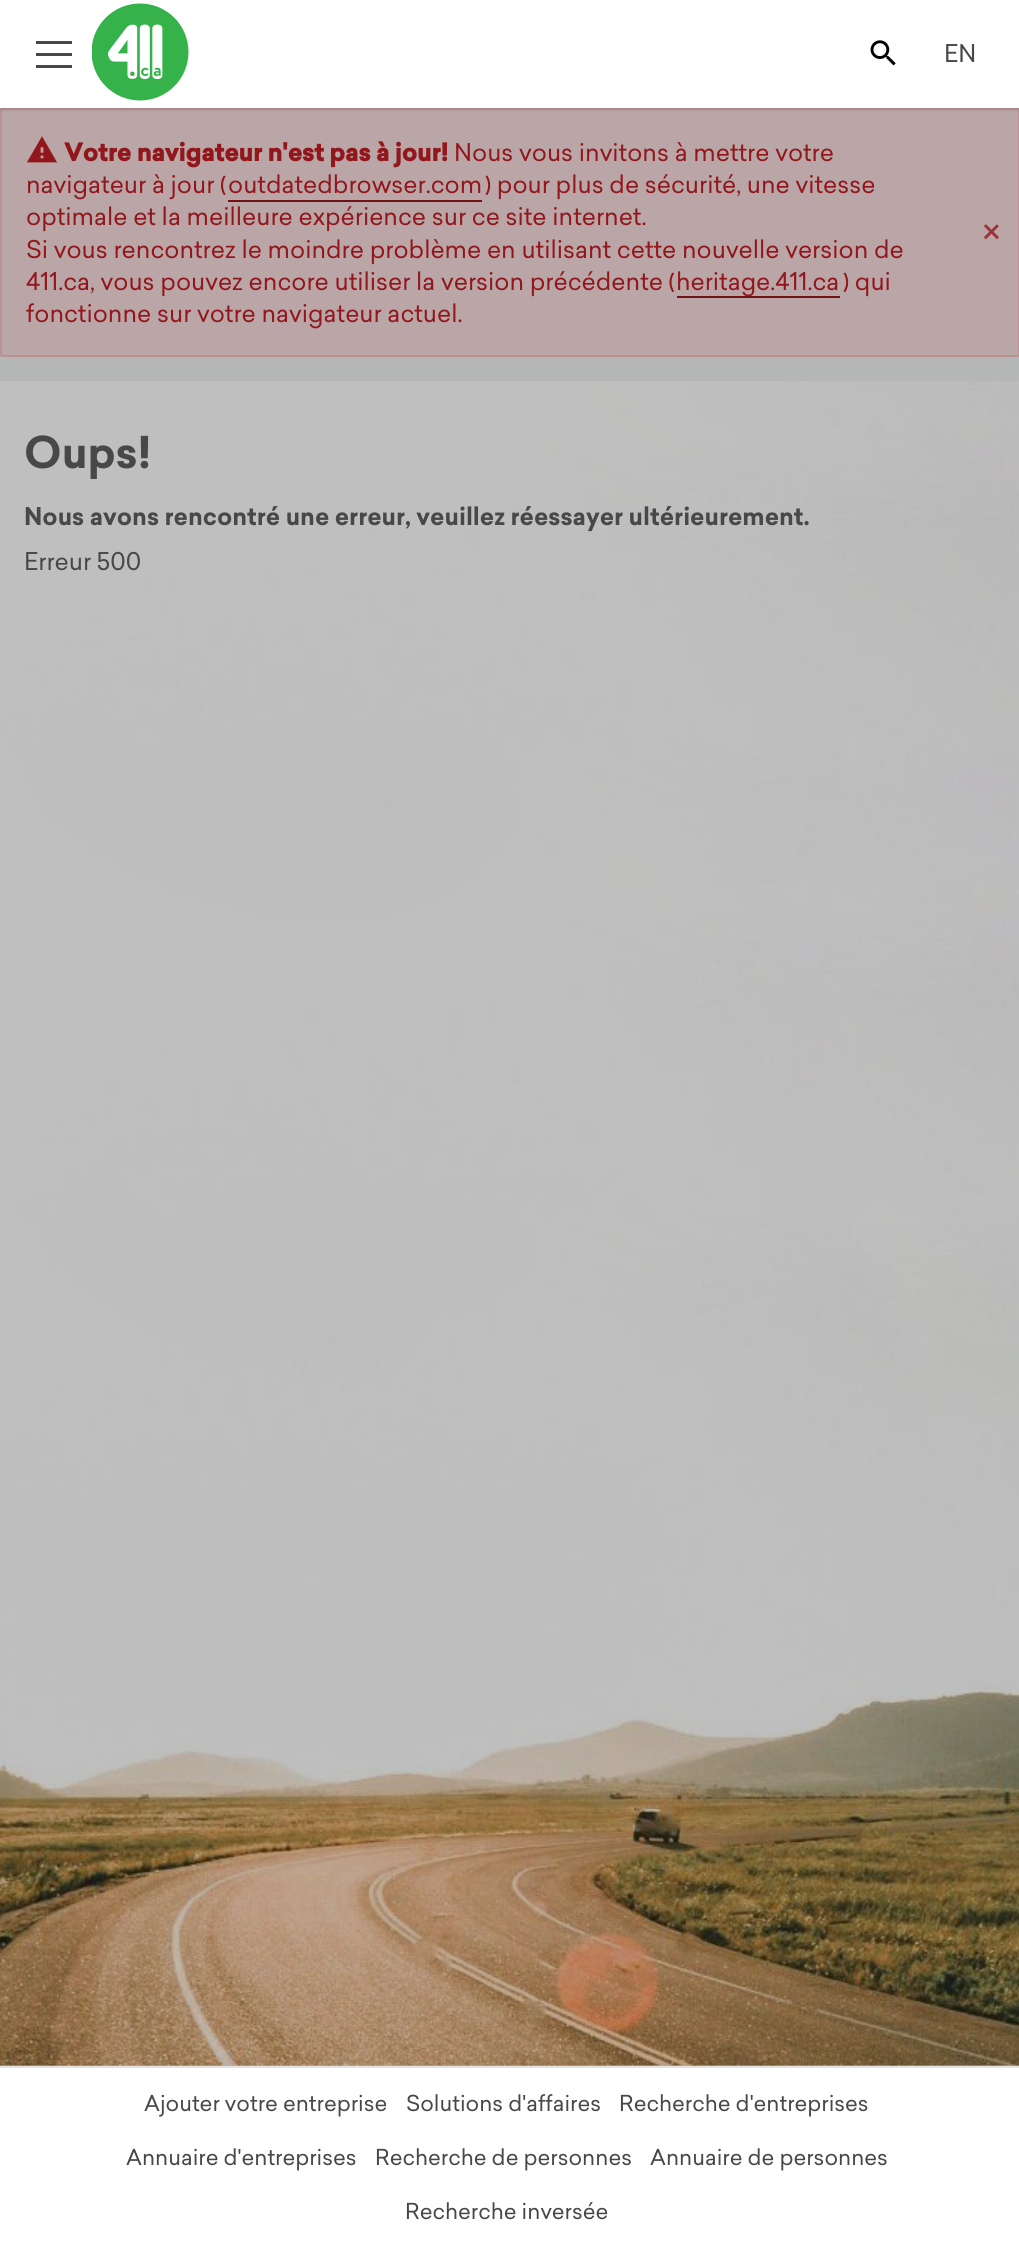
import math
import cairo

surface = cairo.ImageSurface(cairo.FORMAT_RGB24, 1019, 2246)
ctx = cairo.Context(surface)
options = cairo.FontOptions()
options.set_hint_metrics(cairo.HINT_METRICS_OFF)
options.set_hint_style(cairo.HINT_STYLE_NONE)
ctx.set_font_options(options)
ctx.set_miter_limit(4)


def set_color(code):
    ctx.set_source_rgb(*(v / 255 for v in bytes.fromhex(code[-6:])))


def draw_text(x, y, s, family, size, color, bold=False, italic=False):
    ctx.select_font_face(family, cairo.FONT_SLANT_ITALIC if italic else cairo.FONT_SLANT_NORMAL, cairo.FONT_WEIGHT_BOLD if bold else cairo.FONT_WEIGHT_NORMAL)
    ctx.set_font_size(size)
    set_color(color)
    ctx.move_to(x, y)
    ctx.show_text(s)


def fill_rect(x, y, w, h, color):
    set_color(color)
    ctx.rectangle(x, y, w, h)
    ctx.fill()


def rounded_rect(x, y, w, h, r):
    ctx.new_sub_path()
    for i, (u, v) in enumerate([(x + w - r, y + h - r), (x + r, y + h - r), (x + r, y + r), (x + w - r, y + r)]):
        ctx.arc(u, v, r, i * math.pi / 2, (i + 1) * math.pi / 2)
    ctx.close_path()


def draw_shadow(x, y, w, h, r, blur, alpha):
    ctx.push_group_with_content(cairo.CONTENT_ALPHA)
    ctx.set_operator(cairo.OPERATOR_SOURCE)
    for i in range(15, -16, -2):
        e = blur * i / 6
        if min(w, h) + 2 * e > 0:
            ctx.set_source_rgba(0, 0, 0, alpha * math.erfc((i - 1) / 8.5) / 2)
            rounded_rect(x - e, y - e, w + 2 * e, h + 2 * e, max(0, min(r + e + blur * .6, min(w, h) / 2 + e)))
            ctx.fill()
    ctx.mask(ctx.pop_group())


def draw_image(path, x, y, w, h):
    ctx.save()
    ctx.set_source_surface(cairo.ImageSurface.create_from_png(path), x, y)
    ctx.rectangle(x, y, w, h)
    ctx.fill()
    ctx.restore()


set_color("#b5b6b6")
ctx.paint()
set_color("#bba6a7")
rounded_rect(1, 109, 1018, 247, 0.5)
ctx.fill_preserve()
set_color("#b89294")
ctx.stroke()
set_color("#000000")
draw_shadow(0, 2, 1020, 108, 0, 1.5, 0.1)
fill_rect(0, 0, 1019, 108, "#ffffff")
fill_rect(36, 41, 36, 3, "#484848")
fill_rect(36, 53, 36, 3, "#484848")
fill_rect(36, 65, 36, 3, "#484848")
draw_image("assets/img1.png", 92, 3, 97, 98)
draw_image("assets/img2.png", 870, 40, 26, 26)
draw_text(944, 62, "EN", "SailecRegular", 24, "#484848")
draw_image("assets/img3.png", 27, 136, 30, 27)
draw_text(64, 161, "Votre navigateur n'est pas à jour!", "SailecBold", 24, "#92171d", bold=True)
draw_text(454, 161, "Nous vous invitons à mettre votre", "SailecRegular", 24, "#92171d")
draw_text(26, 193, "navigateur à jour (", "SailecRegular", 24, "#92171d")
fill_rect(228, 200, 254, 2, "#711217")
draw_text(228, 193, "outdatedbrowser.com", "SailecRegular", 24, "#92171d")
draw_text(485, 193, ") pour plus de sécurité, une vitesse", "SailecRegular", 24, "#92171d")
draw_text(26, 225, "optimale et la meilleure expérience sur ce site internet.", "SailecRegular", 24, "#92171d")
draw_text(26, 258, "Si vous rencontrez le moindre problème en utilisant cette nouvelle version de", "SailecRegular", 24, "#92171d")
draw_text(26, 290, "411.ca, vous pouvez encore utiliser la version précédente (", "SailecRegular", 24, "#92171d")
fill_rect(677, 296, 163, 2, "#711217")
draw_text(676, 290, "heritage.411.ca", "SailecRegular", 24, "#92171d")
draw_text(843, 290, ") qui", "SailecRegular", 24, "#92171d")
draw_text(26, 322, "fonctionne sur votre navigateur actuel.", "SailecRegular", 24, "#92171d")
draw_text(982, 245, "×", "SailecRegular", 36, "#9a3439")
draw_image("assets/img4.png", 0, 381, 1019, 1685)
draw_text(24, 468, "Oups!", "SailecBold", 43, "#484848")
draw_text(24, 525, "Nous avons rencontré une erreur, veuillez réessayer ultérieurement.", "SailecBold", 24, "#484848")
draw_text(24, 570, "Erreur 500", "SailecRegular", 24, "#484848")
fill_rect(0, 2068, 1019, 178, "#ffffff")
fill_rect(0, 2066, 1019, 2, "#e2e2e2")
draw_text(144, 2111, "Ajouter votre entreprise", "SailecRegular", 21.6, "#484848")
draw_text(406, 2111, "Solutions d'affaires", "SailecRegular", 21.6, "#484848")
draw_text(619, 2111, "Recherche d'entreprises", "SailecRegular", 21.6, "#484848")
draw_text(126, 2165, "Annuaire d'entreprises", "SailecRegular", 21.6, "#484848")
draw_text(375, 2165, "Recherche de personnes", "SailecRegular", 21.6, "#484848")
draw_text(650, 2165, "Annuaire de personnes", "SailecRegular", 21.6, "#484848")
draw_text(405, 2219, "Recherche inversée", "SailecRegular", 21.6, "#484848")
surface.write_to_png("output.png")
